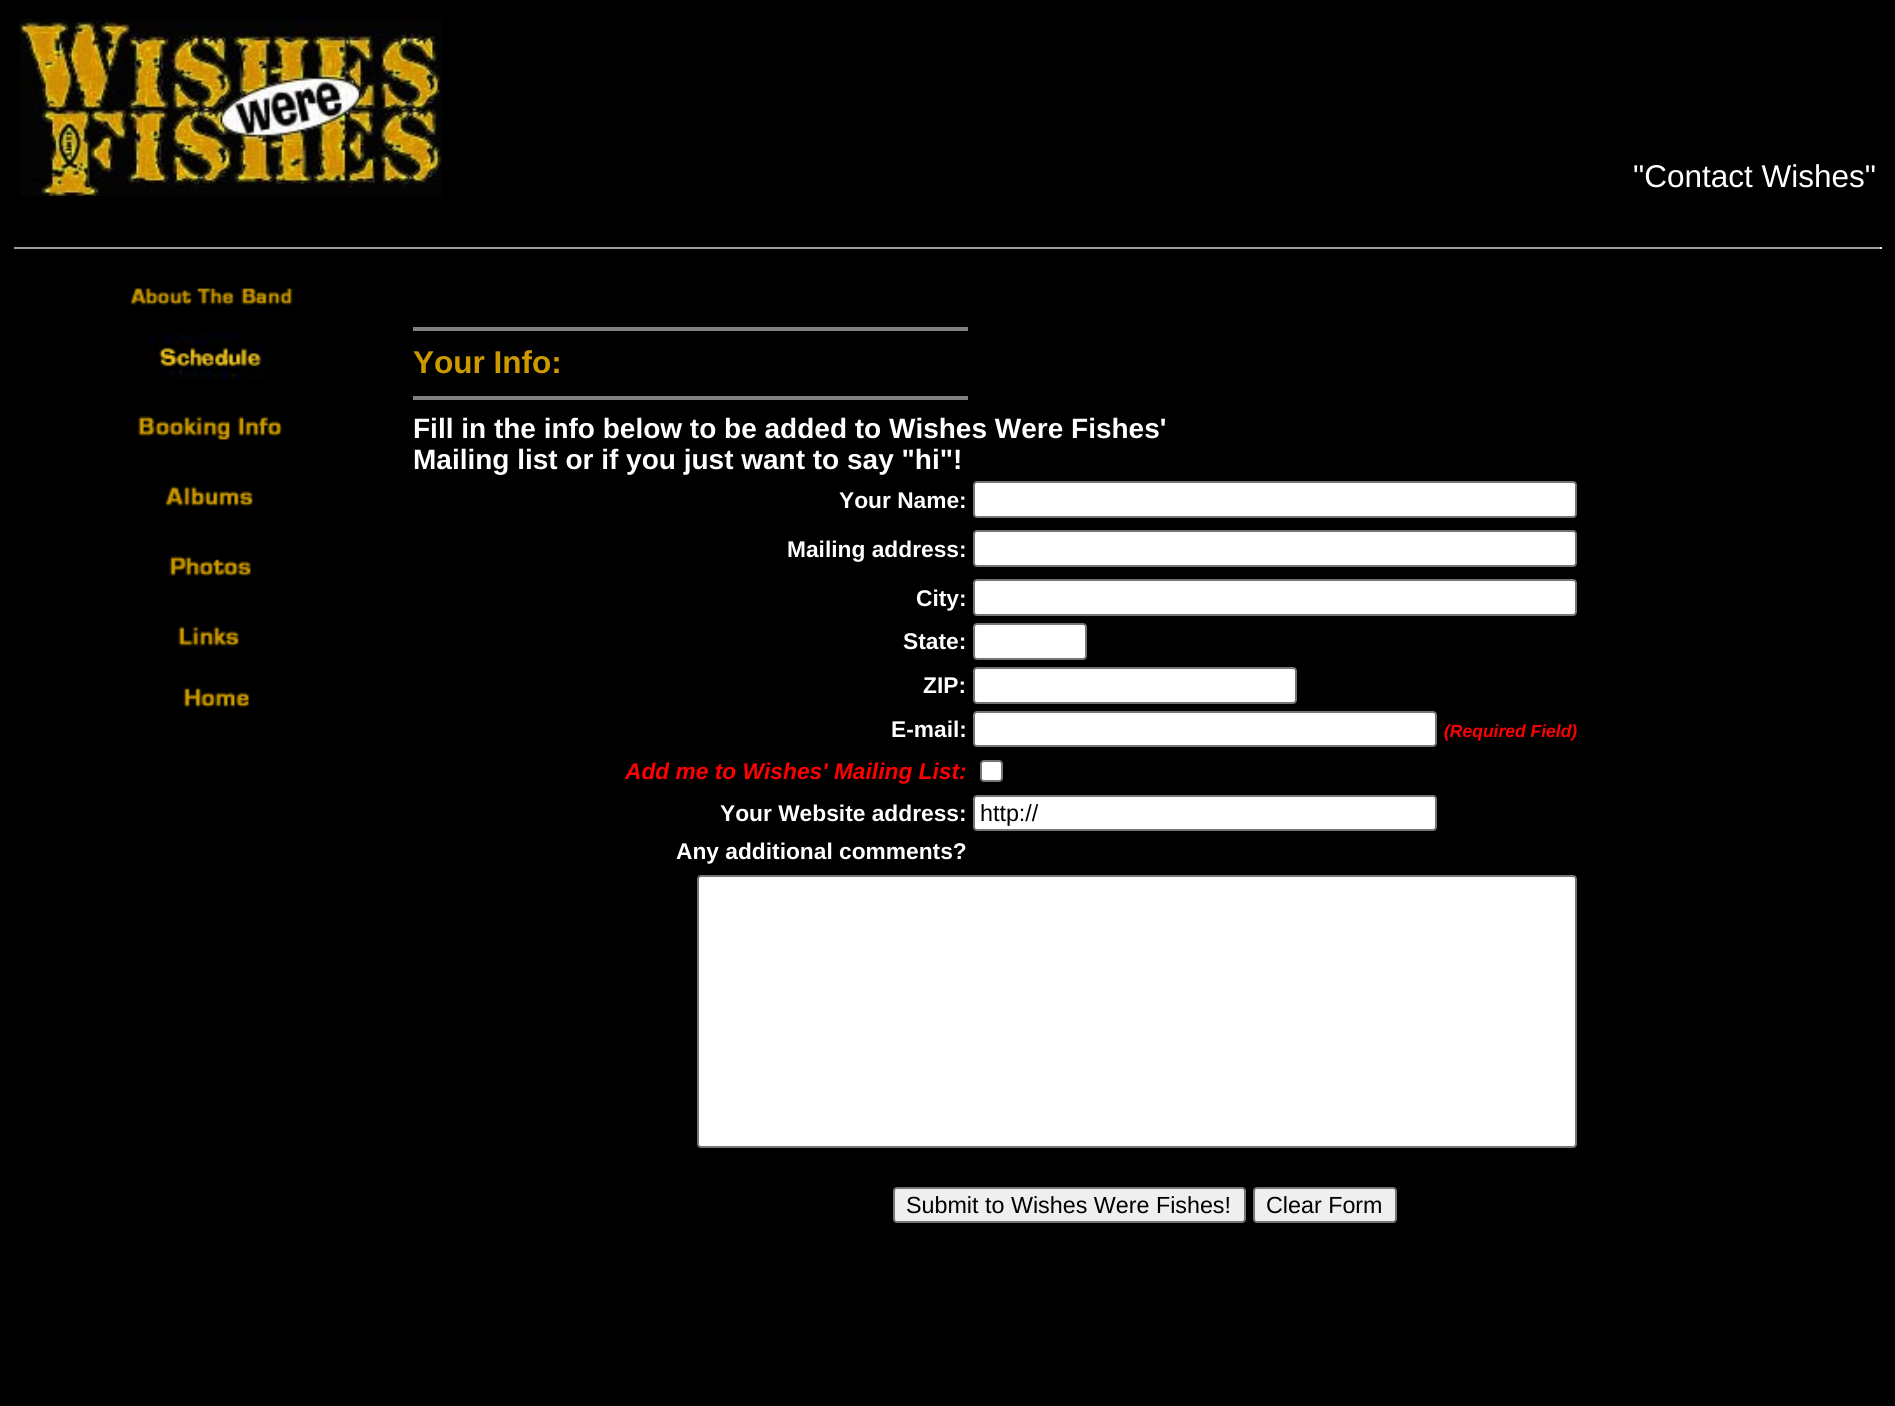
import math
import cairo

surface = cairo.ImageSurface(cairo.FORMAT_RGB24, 1895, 1406)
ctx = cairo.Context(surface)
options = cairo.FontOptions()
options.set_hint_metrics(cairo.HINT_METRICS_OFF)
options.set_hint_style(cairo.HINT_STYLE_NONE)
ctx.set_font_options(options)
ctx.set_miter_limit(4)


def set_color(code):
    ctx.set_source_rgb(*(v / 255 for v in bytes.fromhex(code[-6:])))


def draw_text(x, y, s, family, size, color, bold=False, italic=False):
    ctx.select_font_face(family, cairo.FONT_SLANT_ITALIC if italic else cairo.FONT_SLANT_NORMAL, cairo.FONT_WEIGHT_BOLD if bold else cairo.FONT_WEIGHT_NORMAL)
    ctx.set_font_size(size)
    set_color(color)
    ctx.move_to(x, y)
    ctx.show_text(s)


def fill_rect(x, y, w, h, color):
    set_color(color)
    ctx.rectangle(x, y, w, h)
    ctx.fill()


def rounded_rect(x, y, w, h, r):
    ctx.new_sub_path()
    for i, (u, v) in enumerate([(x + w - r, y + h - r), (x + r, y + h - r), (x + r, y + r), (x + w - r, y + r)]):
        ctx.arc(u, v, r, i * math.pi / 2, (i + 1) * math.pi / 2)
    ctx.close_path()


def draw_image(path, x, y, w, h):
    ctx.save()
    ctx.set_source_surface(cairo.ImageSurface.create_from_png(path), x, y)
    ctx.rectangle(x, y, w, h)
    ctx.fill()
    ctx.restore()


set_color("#000000")
ctx.paint()
draw_image("assets/img1.png", 19, 19, 423, 177)
draw_text(1633, 187, "\"Contact Wishes\"", "Liberation Sans", 31.5, "#ffffff")
fill_rect(14, 247, 1867, 2, "#9f9f9f")
fill_rect(1880, 247, 2, 2, "#eeeeee")
draw_image("assets/img2.png", 130, 288, 163, 17)
draw_image("assets/img3.png", 150, 334, 113, 46)
draw_image("assets/img4.png", 138, 416, 145, 24)
draw_image("assets/img5.png", 165, 486, 88, 21)
draw_image("assets/img6.png", 169, 556, 82, 21)
draw_image("assets/img7.png", 178, 626, 61, 21)
draw_image("assets/img8.png", 183, 687, 66, 21)
fill_rect(413, 327, 555, 4, "#808080")
draw_text(413, 373, "Your Info:", "Liberation Sans", 31.5, "#cc9900", bold=True)
fill_rect(413, 396, 555, 4, "#808080")
draw_text(413, 438, "Fill in the info below to be added to Wishes Were Fishes'", "Liberation Sans", 28, "#ffffff", bold=True)
draw_text(413, 469, "Mailing list or if you just want to say \"hi\"!", "Liberation Sans", 28, "#ffffff", bold=True)
draw_text(839, 508, "Your Name:", "Liberation Sans", 22.75, "#ffffff", bold=True)
rounded_rect(974, 482, 602, 35, 3)
ctx.fill_preserve()
set_color("#767676")
ctx.stroke()
draw_text(787, 557, "Mailing address:", "Liberation Sans", 22.75, "#ffffff", bold=True)
rounded_rect(974, 531, 602, 35, 3)
ctx.fill_preserve()
set_color("#767676")
ctx.stroke()
draw_text(916, 606, "City:", "Liberation Sans", 22.75, "#ffffff", bold=True)
rounded_rect(974, 580, 602, 35, 3)
ctx.fill_preserve()
set_color("#767676")
ctx.stroke()
draw_text(903, 649, "State:", "Liberation Sans", 22.75, "#ffffff", bold=True)
rounded_rect(974, 624, 112, 35, 3)
ctx.fill_preserve()
set_color("#767676")
ctx.stroke()
draw_text(923, 693, "ZIP:", "Liberation Sans", 22.75, "#ffffff", bold=True)
rounded_rect(974, 668, 322, 35, 3)
ctx.fill_preserve()
set_color("#767676")
ctx.stroke()
draw_text(891, 737, "E-mail:", "Liberation Sans", 22.75, "#ffffff", bold=True)
rounded_rect(974, 712, 462, 34, 3)
ctx.fill_preserve()
set_color("#767676")
ctx.stroke()
draw_text(1444, 737, "(Required Field)", "Liberation Sans", 17.5, "#ff0000", bold=True, italic=True)
draw_text(625, 779, "Add me to Wishes' Mailing List:", "Liberation Sans", 22.75, "#ff0000", bold=True, italic=True)
set_color("#ffffff")
rounded_rect(981, 761, 21, 20, 3)
ctx.fill_preserve()
set_color("#767676")
ctx.stroke()
draw_text(720, 821, "Your Website address:", "Liberation Sans", 22.75, "#ffffff", bold=True)
rounded_rect(974, 796, 462, 34, 3)
ctx.fill_preserve()
set_color("#767676")
ctx.stroke()
draw_text(980, 821, "http://", "Liberation Sans", 23.3, "#000000")
draw_text(676, 859, "Any additional comments?", "Liberation Sans", 22.75, "#ffffff", bold=True)
rounded_rect(698, 876, 878, 271, 3)
ctx.fill_preserve()
set_color("#767676")
ctx.stroke()
set_color("#efefef")
rounded_rect(894, 1188, 351, 34, 3)
ctx.fill_preserve()
set_color("#767676")
ctx.stroke()
draw_text(906, 1213, "Submit to Wishes Were Fishes!", "Liberation Sans", 23.3, "#000000")
set_color("#efefef")
rounded_rect(1254, 1188, 142, 34, 3)
ctx.fill_preserve()
set_color("#767676")
ctx.stroke()
draw_text(1266, 1213, "Clear Form", "Liberation Sans", 23.3, "#000000")
surface.write_to_png("output.png")
